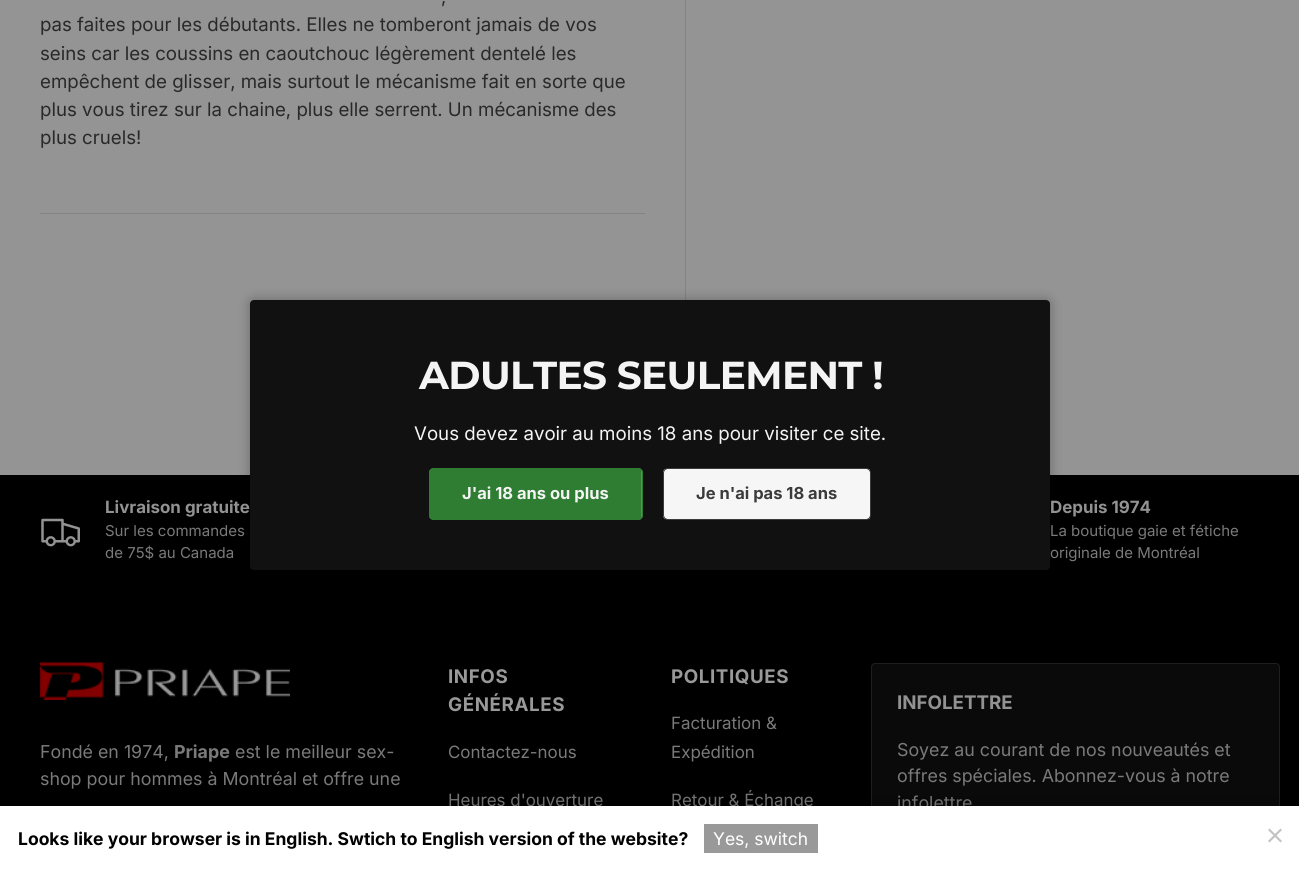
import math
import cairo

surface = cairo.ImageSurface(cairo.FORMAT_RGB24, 1299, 869)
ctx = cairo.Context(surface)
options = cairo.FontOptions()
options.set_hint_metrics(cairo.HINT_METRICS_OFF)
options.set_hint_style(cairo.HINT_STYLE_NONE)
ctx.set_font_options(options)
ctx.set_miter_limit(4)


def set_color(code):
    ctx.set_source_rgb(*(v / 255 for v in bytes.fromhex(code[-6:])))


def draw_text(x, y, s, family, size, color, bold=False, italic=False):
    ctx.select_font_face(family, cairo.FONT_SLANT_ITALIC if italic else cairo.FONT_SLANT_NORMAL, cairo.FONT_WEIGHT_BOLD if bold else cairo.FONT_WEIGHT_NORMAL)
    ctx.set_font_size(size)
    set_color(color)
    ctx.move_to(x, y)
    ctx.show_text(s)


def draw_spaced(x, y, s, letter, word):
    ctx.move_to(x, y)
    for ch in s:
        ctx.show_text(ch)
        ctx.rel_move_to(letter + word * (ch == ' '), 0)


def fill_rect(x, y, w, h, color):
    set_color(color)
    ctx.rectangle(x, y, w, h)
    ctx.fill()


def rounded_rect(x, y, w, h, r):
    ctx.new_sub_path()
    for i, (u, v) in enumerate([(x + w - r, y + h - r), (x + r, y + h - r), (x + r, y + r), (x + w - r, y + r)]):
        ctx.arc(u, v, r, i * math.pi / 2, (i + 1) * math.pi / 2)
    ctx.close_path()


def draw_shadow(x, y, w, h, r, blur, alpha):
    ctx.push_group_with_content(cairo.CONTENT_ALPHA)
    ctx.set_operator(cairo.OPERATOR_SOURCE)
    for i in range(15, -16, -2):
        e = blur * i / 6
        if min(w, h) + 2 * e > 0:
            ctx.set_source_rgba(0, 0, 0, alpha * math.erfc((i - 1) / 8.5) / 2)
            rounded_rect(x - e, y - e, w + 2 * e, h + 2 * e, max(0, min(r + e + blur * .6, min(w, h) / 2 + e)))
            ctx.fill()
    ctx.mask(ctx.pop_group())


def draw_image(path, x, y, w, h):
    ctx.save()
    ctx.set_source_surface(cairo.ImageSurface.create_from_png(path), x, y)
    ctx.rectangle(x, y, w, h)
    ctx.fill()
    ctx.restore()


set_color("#949494")
ctx.paint()
draw_text(441, 3, ",", "Inter", 18.75, "#292929")
draw_text(40, 31, "pas faites pour les débutants. Elles ne tomberont jamais de vos", "Inter", 18.75, "#292929")
draw_text(40, 60, "seins car les coussins en caoutchouc légèrement dentelé les", "Inter", 18.75, "#292929")
draw_text(40, 88, "empêchent de glisser, mais surtout le mécanisme fait en sorte que", "Inter", 18.75, "#292929")
draw_text(40, 116, "plus vous tirez sur la chaine, plus elle serrent. Un mécanisme des", "Inter", 18.75, "#292929")
draw_text(40, 144, "plus cruels!", "Inter", 18.75, "#292929")
fill_rect(40, 213, 605, 1, "#838383")
fill_rect(685, 0, 1, 300, "#838383")
fill_rect(0, 475, 1299, 331, "#000000")
set_color("#000000")
draw_shadow(250, 300, 800, 270, 4, 6, 0.3)
set_color("#111111")
rounded_rect(250, 300, 800, 270, 4)
ctx.fill()
ctx.select_font_face("Montserrat", cairo.FONT_SLANT_NORMAL, cairo.FONT_WEIGHT_BOLD)
ctx.set_font_size(39)
set_color("#f4f4f4")
draw_spaced(419, 389, "ADULTES SEULEMENT !", -0.6, 0)
draw_text(414, 440, "Vous devez avoir au moins 18 ans pour visiter ce site.", "Inter", 18.75, "#f4f4f4")
set_color("#519955")
rounded_rect(429, 468, 214, 52, 5)
ctx.fill()
ctx.save()
rounded_rect(429, 468, 214, 52, 5)
ctx.clip()
gradient = cairo.LinearGradient(20, 418, 629, 570)
gradient.add_color_stop_rgba(0.6, 0.318, 0.6, 0.333, 1)
gradient.add_color_stop_rgba(0.6, 0.18, 0.49, 0.196, 1)
gradient.add_color_stop_rgba(1, 0.18, 0.49, 0.196, 1)
ctx.set_source(gradient)
ctx.rectangle(429, 469, 212, 50)
ctx.fill()
ctx.restore()
rounded_rect(429.5, 468.5, 213, 51, 4.5)
set_color("#2e7d32")
ctx.set_line_width(1)
ctx.stroke()
draw_text(462, 499, "J'ai 18 ans ou plus", "Inter", 16.5, "#f4f4f4", bold=True)
ctx.save()
rounded_rect(663, 468, 208, 52, 5)
ctx.clip()
gradient = cairo.LinearGradient(263, 420, 858, 568)
gradient.add_color_stop_rgba(0.6, 0.231, 0.231, 0.231, 0.07)
gradient.add_color_stop_rgba(0.6, 0.965, 0.965, 0.965, 1)
gradient.add_color_stop_rgba(1, 0.965, 0.965, 0.965, 1)
ctx.set_source(gradient)
ctx.rectangle(663, 469, 207, 50)
ctx.fill()
ctx.restore()
rounded_rect(663.5, 468.5, 207, 51, 4.5)
set_color("#3b3b3b")
ctx.stroke()
draw_text(696, 499, "Je n'ai pas 18 ans", "Inter", 16.5, "#3b3b3b", bold=True)
draw_image("assets/img1.png", 41, 518, 39, 29)
draw_text(105, 513, "Livraison gratuite", "Inter", 16.9, "#929292", bold=True)
draw_text(105, 536, "Sur les commandes", "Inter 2", 15, "#7a7a7a")
draw_text(105, 558, "de 75$ au Canada", "Inter 2", 15, "#7a7a7a")
draw_text(1050, 513, "Depuis 1974", "Inter", 16.9, "#929292", bold=True)
draw_text(1050, 536, "La boutique gaie et fétiche", "Inter 2", 15, "#7a7a7a")
draw_text(1050, 558, "originale de Montréal", "Inter 2", 15, "#7a7a7a")
draw_image("assets/img2.png", 40, 662, 250, 38)
draw_text(40, 758, "Fondé en 1974,", "Inter 2", 17.8, "#7a7a7a")
draw_text(174, 758, "Priape", "Inter", 17.8, "#7a7a7a", bold=True)
draw_text(235, 758, "est le meilleur sex-", "Inter 2", 17.8, "#7a7a7a")
draw_text(40, 785, "shop pour hommes à Montréal et offre une", "Inter 2", 17.8, "#7a7a7a")
ctx.select_font_face("Inter", cairo.FONT_SLANT_NORMAL, cairo.FONT_WEIGHT_BOLD)
ctx.set_font_size(18.75)
set_color("#999999")
draw_spaced(448, 683, "INFOS", 0.6, 0)
draw_spaced(448, 711, "GÉNÉRALES", 0.6, 0)
draw_text(448, 758, "Contactez-nous", "Inter 2", 16.9, "#7a7a7a")
draw_text(448, 806, "Heures d'ouverture", "Inter 2", 16.9, "#7a7a7a")
ctx.select_font_face("Inter", cairo.FONT_SLANT_NORMAL, cairo.FONT_WEIGHT_BOLD)
ctx.set_font_size(18.75)
set_color("#999999")
draw_spaced(671, 683, "POLITIQUES", 0.6, 0)
draw_text(671, 729, "Facturation &", "Inter 2", 16.9, "#7a7a7a")
draw_text(671, 758, "Expédition", "Inter 2", 16.9, "#7a7a7a")
draw_text(671, 806, "Retour & Échange", "Inter 2", 16.9, "#7a7a7a")
set_color("#0a0a0a")
rounded_rect(871.5, 663.5, 408, 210, 3.5)
ctx.fill_preserve()
set_color("#1f1f1f")
ctx.stroke()
draw_text(897, 709, "INFOLETTRE", "Inter", 18.75, "#929292", bold=True)
draw_text(897, 756, "Soyez au courant de nos nouveautés et", "Inter 2", 17.8, "#7a7a7a")
draw_text(897, 782, "offres spéciales. Abonnez-vous à notre", "Inter 2", 17.8, "#7a7a7a")
draw_text(897, 809, "infolettre", "Inter 2", 17.8, "#7a7a7a")
set_color("#000000")
draw_shadow(0, 806, 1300, 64, 0, 12.5, 0.25)
fill_rect(0, 806, 1299, 63, "#ffffff")
draw_text(18, 845, "Looks like your browser is in English. Swtich to English version of the website?", "Inter", 17.5, "#000000", bold=True)
fill_rect(704, 824, 114, 29, "#999999")
draw_text(713, 845, "Yes, switch", "Inter 2", 17.5, "#ffffff")
set_color("#c2c2c2")
ctx.new_path()
ctx.move_to(1280.5, 828.5)
ctx.line_to(1282, 830)
ctx.line_to(1269.5, 842.5)
ctx.line_to(1268, 841)
ctx.close_path()
ctx.fill()
ctx.new_path()
ctx.move_to(1268, 830)
ctx.line_to(1269.5, 828.5)
ctx.line_to(1282, 841)
ctx.line_to(1280.5, 842.5)
ctx.close_path()
ctx.fill()
surface.write_to_png("output.png")
